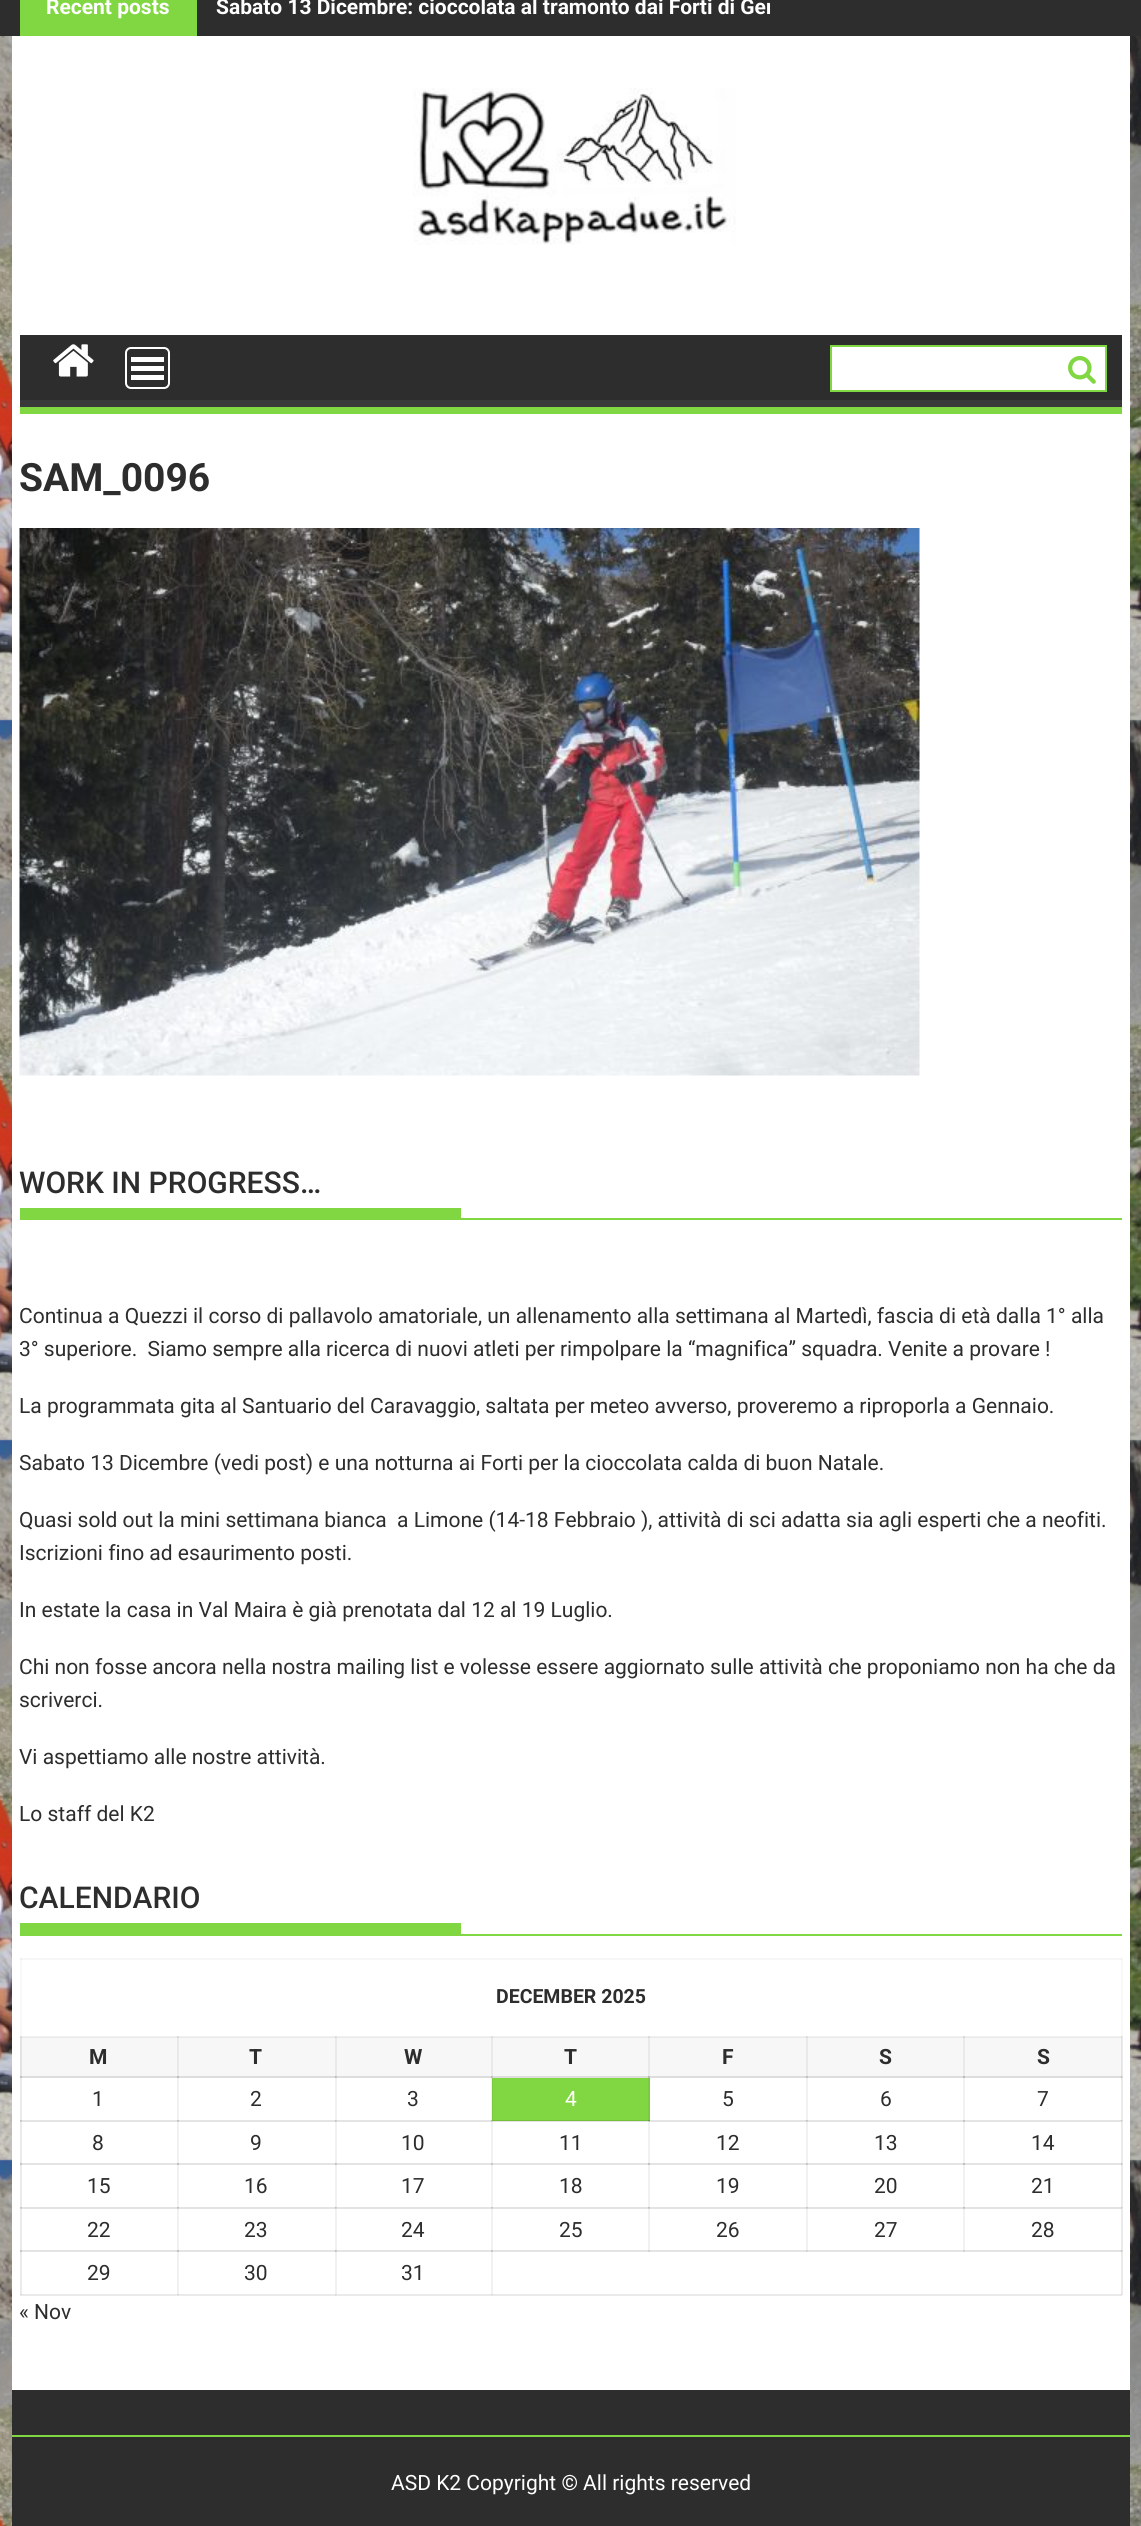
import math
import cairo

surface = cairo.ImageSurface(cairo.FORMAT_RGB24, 1141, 2526)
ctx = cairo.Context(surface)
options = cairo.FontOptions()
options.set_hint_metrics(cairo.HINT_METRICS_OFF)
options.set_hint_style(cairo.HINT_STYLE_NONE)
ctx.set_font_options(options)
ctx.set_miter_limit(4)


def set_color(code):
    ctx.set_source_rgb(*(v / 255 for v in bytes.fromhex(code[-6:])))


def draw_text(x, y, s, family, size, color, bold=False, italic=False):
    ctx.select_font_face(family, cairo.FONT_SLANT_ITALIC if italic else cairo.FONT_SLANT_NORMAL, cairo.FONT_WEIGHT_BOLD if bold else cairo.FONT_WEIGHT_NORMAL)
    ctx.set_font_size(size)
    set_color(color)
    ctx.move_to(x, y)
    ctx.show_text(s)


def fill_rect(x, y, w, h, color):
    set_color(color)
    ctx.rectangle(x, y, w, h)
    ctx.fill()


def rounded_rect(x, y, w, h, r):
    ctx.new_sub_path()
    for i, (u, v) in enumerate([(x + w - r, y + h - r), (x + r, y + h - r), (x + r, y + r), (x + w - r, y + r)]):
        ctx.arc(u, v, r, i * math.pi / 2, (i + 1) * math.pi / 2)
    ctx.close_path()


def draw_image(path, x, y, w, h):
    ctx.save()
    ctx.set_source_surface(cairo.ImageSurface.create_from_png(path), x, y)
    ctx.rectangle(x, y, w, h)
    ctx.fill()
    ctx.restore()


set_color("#ffffff")
ctx.paint()
draw_image("assets/img1.png", 0, 36, 1141, 2490)
fill_rect(0, 0, 1141, 36, "#2d2d2d")
fill_rect(20, 0, 177, 36, "#81d742")
draw_text(46, 14, "Recent posts", "Roboto", 21, "#ffffff", bold=True)
ctx.save()
ctx.rectangle(197, 0, 573, 36)
ctx.clip()
draw_text(216, 14, "Sabato 13 Dicembre: cioccolata al tramonto dai Forti di Gen", "Roboto", 21, "#ffffff", bold=True)
ctx.restore()
fill_rect(12, 36, 1118, 2354, "#ffffff")
draw_image("assets/img2.png", 413, 88, 323, 157)
fill_rect(20, 335, 1102, 65, "#2d2d2d")
ctx.save()
ctx.rectangle(20, 335, 1102, 72)
ctx.clip()
set_color("#393939")
ctx.set_fill_rule(cairo.FILL_RULE_EVEN_ODD)
ctx.new_path()
ctx.move_to(-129, 186)
ctx.line_to(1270, 186)
ctx.line_to(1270, 555)
ctx.line_to(-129, 555)
ctx.close_path()
ctx.move_to(18, 326)
ctx.line_to(1120, 326)
ctx.curve_to(1121, 326, 1122, 326, 1122, 327)
ctx.line_to(1122, 399)
ctx.curve_to(1122, 400, 1121, 400, 1120, 400)
ctx.line_to(18, 400)
ctx.curve_to(17, 400, 16, 400, 16, 399)
ctx.line_to(16, 327)
ctx.curve_to(16, 326, 17, 326, 18, 326)
ctx.close_path()
ctx.fill()
ctx.restore()
fill_rect(20, 407, 1102, 7, "#81d742")
draw_image("assets/img3.png", 53, 344, 41, 33)
set_color("#ffffff")
ctx.rectangle(831, 346, 275, 45)
ctx.fill_preserve()
set_color("#81d742")
ctx.stroke()
draw_image("assets/img4.png", 1068, 355, 28, 29)
rounded_rect(126, 348, 43, 40, 5)
set_color("#ffffff")
ctx.stroke()
fill_rect(131, 375, 33, 5, "#ffffff")
fill_rect(131, 366, 33, 5, "#ffffff")
fill_rect(131, 357, 33, 5, "#ffffff")
draw_text(19, 491, "SAM_0096", "Roboto", 39, "#2d2d2d", bold=True)
draw_image("assets/img5.png", 19, 528, 901, 548)
fill_rect(20, 1218, 1102, 2, "#81d742")
draw_text(19, 1193, "WORK IN PROGRESS…", "Roboto Medium", 30, "#2d2d2d")
fill_rect(20, 1208, 441, 10, "#81d742")
draw_text(19, 1323, "Continua a Quezzi il corso di pallavolo amatoriale, un allenamento alla settimana al Martedì, fascia di età dalla 1° alla", "Roboto", 21, "#2d2d2d")
draw_text(19, 1356, "3° superiore.  Siamo sempre alla ricerca di nuovi atleti per rimpolpare la “magnifica” squadra. Venite a provare !", "Roboto", 21, "#2d2d2d")
draw_text(19, 1413, "La programmata gita al Santuario del Caravaggio, saltata per meteo avverso, proveremo a riproporla a Gennaio.", "Roboto", 21, "#2d2d2d")
draw_text(19, 1470, "Sabato 13 Dicembre (vedi post) e una notturna ai Forti per la cioccolata calda di buon Natale.", "Roboto", 21, "#2d2d2d")
draw_text(19, 1527, "Quasi sold out la mini settimana bianca  a Limone (14-18 Febbraio ), attività di sci adatta sia agli esperti che a neofiti.", "Roboto", 21, "#2d2d2d")
draw_text(19, 1560, "Iscrizioni fino ad esaurimento posti.", "Roboto", 21, "#2d2d2d")
draw_text(19, 1617, "In estate la casa in Val Maira è già prenotata dal 12 al 19 Luglio.", "Roboto", 21, "#2d2d2d")
draw_text(19, 1674, "Chi non fosse ancora nella nostra mailing list e volesse essere aggiornato sulle attività che proponiamo non ha che da", "Roboto", 21, "#2d2d2d")
draw_text(19, 1707, "scriverci.", "Roboto", 21, "#2d2d2d")
draw_text(19, 1764, "Vi aspettiamo alle nostre attività.", "Roboto", 21, "#2d2d2d")
draw_text(19, 1821, "Lo staff del K2", "Roboto", 21, "#2d2d2d")
fill_rect(20, 1934, 1102, 2, "#81d742")
draw_text(19, 1908, "CALENDARIO", "Roboto Medium", 30, "#2d2d2d")
fill_rect(20, 1923, 441, 11, "#81d742")
fill_rect(20, 1958, 1102, 2, "#f7f7f7")
fill_rect(20, 2037, 1102, 41, "#f7f7f7")
ctx.set_source_rgba(0, 0, 0, 0.03)
ctx.rectangle(1121, 1958, 2, 337)
ctx.fill()
ctx.rectangle(20, 2294, 1102, 2)
ctx.fill()
ctx.rectangle(20, 1958, 2, 337)
ctx.fill()
draw_text(496, 2003, "DECEMBER 2025", "Roboto", 19.5, "#2d2d2d", bold=True)
ctx.set_source_rgba(0, 0, 0, 0.03)
ctx.rectangle(20, 2036, 1102, 2)
ctx.fill()
ctx.rectangle(20, 2076, 1102, 2)
ctx.fill()
fill_rect(492, 2078, 158, 43, "#81d742")
ctx.set_source_rgba(0, 0, 0, 0.03)
ctx.rectangle(20, 2120, 1102, 2)
ctx.fill()
ctx.rectangle(20, 2163, 1102, 2)
ctx.fill()
ctx.rectangle(20, 2207, 1102, 2)
ctx.fill()
ctx.rectangle(20, 2250, 1102, 2)
ctx.fill()
ctx.rectangle(1121, 2250, 2, 45)
ctx.fill()
ctx.rectangle(1121, 2207, 2, 45)
ctx.fill()
ctx.rectangle(1121, 2163, 2, 45)
ctx.fill()
ctx.rectangle(1121, 2120, 2, 45)
ctx.fill()
ctx.rectangle(1121, 2076, 2, 45)
ctx.fill()
ctx.rectangle(1121, 2036, 2, 42)
ctx.fill()
ctx.rectangle(20, 2294, 1102, 2)
ctx.fill()
ctx.rectangle(20, 2250, 2, 45)
ctx.fill()
ctx.rectangle(20, 2250, 1102, 2)
ctx.fill()
ctx.rectangle(20, 2207, 2, 45)
ctx.fill()
ctx.rectangle(20, 2207, 1102, 2)
ctx.fill()
ctx.rectangle(20, 2163, 2, 45)
ctx.fill()
ctx.rectangle(20, 2163, 1102, 2)
ctx.fill()
ctx.rectangle(20, 2120, 2, 45)
ctx.fill()
ctx.rectangle(20, 2120, 1102, 2)
ctx.fill()
ctx.rectangle(20, 2076, 2, 45)
ctx.fill()
ctx.rectangle(20, 2076, 1102, 2)
ctx.fill()
ctx.rectangle(20, 2036, 2, 42)
ctx.fill()
ctx.rectangle(963, 2036, 159, 2)
ctx.fill()
ctx.rectangle(963, 2076, 159, 2)
ctx.fill()
ctx.rectangle(963, 2120, 159, 2)
ctx.fill()
ctx.rectangle(963, 2163, 159, 2)
ctx.fill()
ctx.rectangle(963, 2207, 159, 2)
ctx.fill()
ctx.rectangle(491, 2250, 631, 2)
ctx.fill()
ctx.rectangle(1121, 2250, 2, 45)
ctx.fill()
ctx.rectangle(1121, 2207, 2, 45)
ctx.fill()
ctx.rectangle(1121, 2163, 2, 45)
ctx.fill()
ctx.rectangle(1121, 2120, 2, 45)
ctx.fill()
ctx.rectangle(1121, 2076, 2, 45)
ctx.fill()
ctx.rectangle(1121, 2036, 2, 42)
ctx.fill()
ctx.rectangle(963, 2250, 159, 2)
ctx.fill()
ctx.rectangle(963, 2207, 2, 45)
ctx.fill()
ctx.rectangle(806, 2207, 159, 2)
ctx.fill()
ctx.rectangle(963, 2207, 2, 45)
ctx.fill()
ctx.rectangle(963, 2207, 159, 2)
ctx.fill()
ctx.rectangle(963, 2163, 2, 45)
ctx.fill()
ctx.rectangle(806, 2163, 159, 2)
ctx.fill()
ctx.rectangle(963, 2163, 2, 45)
ctx.fill()
ctx.rectangle(963, 2163, 159, 2)
ctx.fill()
ctx.rectangle(963, 2120, 2, 45)
ctx.fill()
ctx.rectangle(806, 2120, 159, 2)
ctx.fill()
ctx.rectangle(963, 2120, 2, 45)
ctx.fill()
ctx.rectangle(963, 2120, 159, 2)
ctx.fill()
ctx.rectangle(963, 2076, 2, 45)
ctx.fill()
ctx.rectangle(806, 2076, 159, 2)
ctx.fill()
ctx.rectangle(963, 2076, 2, 45)
ctx.fill()
ctx.rectangle(963, 2076, 159, 2)
ctx.fill()
ctx.rectangle(963, 2036, 2, 42)
ctx.fill()
ctx.rectangle(806, 2036, 159, 2)
ctx.fill()
ctx.rectangle(963, 2036, 2, 42)
ctx.fill()
ctx.rectangle(806, 2250, 159, 2)
ctx.fill()
ctx.rectangle(806, 2207, 2, 45)
ctx.fill()
ctx.rectangle(648, 2207, 159, 2)
ctx.fill()
ctx.rectangle(806, 2207, 2, 45)
ctx.fill()
ctx.rectangle(806, 2207, 159, 2)
ctx.fill()
ctx.rectangle(806, 2163, 2, 45)
ctx.fill()
ctx.rectangle(648, 2163, 159, 2)
ctx.fill()
ctx.rectangle(806, 2163, 2, 45)
ctx.fill()
ctx.rectangle(806, 2163, 159, 2)
ctx.fill()
ctx.rectangle(806, 2120, 2, 45)
ctx.fill()
ctx.rectangle(648, 2120, 159, 2)
ctx.fill()
ctx.rectangle(806, 2120, 2, 45)
ctx.fill()
ctx.rectangle(806, 2120, 159, 2)
ctx.fill()
ctx.rectangle(806, 2076, 2, 45)
ctx.fill()
ctx.rectangle(648, 2076, 159, 2)
ctx.fill()
ctx.rectangle(806, 2076, 2, 45)
ctx.fill()
ctx.rectangle(806, 2076, 159, 2)
ctx.fill()
ctx.rectangle(806, 2036, 2, 42)
ctx.fill()
ctx.rectangle(648, 2036, 159, 2)
ctx.fill()
ctx.rectangle(806, 2036, 2, 42)
ctx.fill()
ctx.rectangle(648, 2250, 159, 2)
ctx.fill()
ctx.rectangle(648, 2207, 2, 45)
ctx.fill()
ctx.rectangle(491, 2207, 159, 2)
ctx.fill()
ctx.rectangle(648, 2207, 2, 45)
ctx.fill()
ctx.rectangle(648, 2207, 159, 2)
ctx.fill()
ctx.rectangle(648, 2163, 2, 45)
ctx.fill()
ctx.rectangle(491, 2163, 159, 2)
ctx.fill()
ctx.rectangle(648, 2163, 2, 45)
ctx.fill()
ctx.rectangle(648, 2163, 159, 2)
ctx.fill()
ctx.rectangle(648, 2120, 2, 45)
ctx.fill()
ctx.rectangle(491, 2120, 159, 2)
ctx.fill()
ctx.rectangle(648, 2120, 2, 45)
ctx.fill()
ctx.rectangle(648, 2120, 159, 2)
ctx.fill()
ctx.rectangle(648, 2076, 2, 45)
ctx.fill()
ctx.rectangle(491, 2076, 159, 2)
ctx.fill()
ctx.rectangle(648, 2076, 2, 45)
ctx.fill()
ctx.rectangle(648, 2076, 159, 2)
ctx.fill()
ctx.rectangle(648, 2036, 2, 42)
ctx.fill()
ctx.rectangle(491, 2036, 159, 2)
ctx.fill()
ctx.rectangle(648, 2036, 2, 42)
ctx.fill()
ctx.rectangle(491, 2294, 631, 2)
ctx.fill()
ctx.rectangle(491, 2250, 2, 45)
ctx.fill()
ctx.rectangle(335, 2250, 157, 2)
ctx.fill()
ctx.rectangle(491, 2250, 2, 45)
ctx.fill()
ctx.rectangle(491, 2250, 159, 2)
ctx.fill()
ctx.rectangle(491, 2207, 2, 45)
ctx.fill()
ctx.rectangle(335, 2207, 157, 2)
ctx.fill()
ctx.rectangle(491, 2207, 2, 45)
ctx.fill()
ctx.rectangle(491, 2207, 159, 2)
ctx.fill()
ctx.rectangle(491, 2163, 2, 45)
ctx.fill()
ctx.rectangle(335, 2163, 157, 2)
ctx.fill()
ctx.rectangle(491, 2163, 2, 45)
ctx.fill()
ctx.rectangle(491, 2163, 159, 2)
ctx.fill()
ctx.rectangle(491, 2120, 2, 45)
ctx.fill()
ctx.rectangle(335, 2120, 157, 2)
ctx.fill()
ctx.rectangle(491, 2120, 2, 45)
ctx.fill()
ctx.rectangle(491, 2120, 159, 2)
ctx.fill()
ctx.rectangle(491, 2076, 2, 45)
ctx.fill()
ctx.rectangle(335, 2076, 157, 2)
ctx.fill()
ctx.rectangle(491, 2076, 2, 45)
ctx.fill()
ctx.rectangle(491, 2076, 159, 2)
ctx.fill()
ctx.rectangle(491, 2036, 2, 42)
ctx.fill()
ctx.rectangle(335, 2036, 157, 2)
ctx.fill()
ctx.rectangle(491, 2036, 2, 42)
ctx.fill()
ctx.rectangle(335, 2294, 157, 2)
ctx.fill()
ctx.rectangle(335, 2250, 2, 45)
ctx.fill()
ctx.rectangle(177, 2250, 159, 2)
ctx.fill()
ctx.rectangle(335, 2250, 2, 45)
ctx.fill()
ctx.rectangle(335, 2250, 157, 2)
ctx.fill()
ctx.rectangle(335, 2207, 2, 45)
ctx.fill()
ctx.rectangle(177, 2207, 159, 2)
ctx.fill()
ctx.rectangle(335, 2207, 2, 45)
ctx.fill()
ctx.rectangle(335, 2207, 157, 2)
ctx.fill()
ctx.rectangle(335, 2163, 2, 45)
ctx.fill()
ctx.rectangle(177, 2163, 159, 2)
ctx.fill()
ctx.rectangle(335, 2163, 2, 45)
ctx.fill()
ctx.rectangle(335, 2163, 157, 2)
ctx.fill()
ctx.rectangle(335, 2120, 2, 45)
ctx.fill()
ctx.rectangle(177, 2120, 159, 2)
ctx.fill()
ctx.rectangle(335, 2120, 2, 45)
ctx.fill()
ctx.rectangle(335, 2120, 157, 2)
ctx.fill()
ctx.rectangle(335, 2076, 2, 45)
ctx.fill()
ctx.rectangle(177, 2076, 159, 2)
ctx.fill()
ctx.rectangle(335, 2076, 2, 45)
ctx.fill()
ctx.rectangle(335, 2076, 157, 2)
ctx.fill()
ctx.rectangle(335, 2036, 2, 42)
ctx.fill()
ctx.rectangle(177, 2036, 159, 2)
ctx.fill()
ctx.rectangle(335, 2036, 2, 42)
ctx.fill()
ctx.rectangle(177, 2294, 159, 2)
ctx.fill()
ctx.rectangle(177, 2250, 2, 45)
ctx.fill()
ctx.rectangle(20, 2250, 159, 2)
ctx.fill()
ctx.rectangle(177, 2250, 2, 45)
ctx.fill()
ctx.rectangle(177, 2250, 159, 2)
ctx.fill()
ctx.rectangle(177, 2207, 2, 45)
ctx.fill()
ctx.rectangle(20, 2207, 159, 2)
ctx.fill()
ctx.rectangle(177, 2207, 2, 45)
ctx.fill()
ctx.rectangle(177, 2207, 159, 2)
ctx.fill()
ctx.rectangle(177, 2163, 2, 45)
ctx.fill()
ctx.rectangle(20, 2163, 159, 2)
ctx.fill()
ctx.rectangle(177, 2163, 2, 45)
ctx.fill()
ctx.rectangle(177, 2163, 159, 2)
ctx.fill()
ctx.rectangle(177, 2120, 2, 45)
ctx.fill()
ctx.rectangle(20, 2120, 159, 2)
ctx.fill()
ctx.rectangle(177, 2120, 2, 45)
ctx.fill()
ctx.rectangle(177, 2120, 159, 2)
ctx.fill()
ctx.rectangle(177, 2076, 2, 45)
ctx.fill()
ctx.rectangle(20, 2076, 159, 2)
ctx.fill()
ctx.rectangle(177, 2076, 2, 45)
ctx.fill()
ctx.rectangle(177, 2076, 159, 2)
ctx.fill()
ctx.rectangle(177, 2036, 2, 42)
ctx.fill()
ctx.rectangle(20, 2036, 159, 2)
ctx.fill()
ctx.rectangle(177, 2036, 2, 42)
ctx.fill()
ctx.rectangle(20, 2294, 159, 2)
ctx.fill()
ctx.rectangle(20, 2250, 2, 45)
ctx.fill()
ctx.rectangle(20, 2250, 159, 2)
ctx.fill()
ctx.rectangle(20, 2207, 2, 45)
ctx.fill()
ctx.rectangle(20, 2207, 159, 2)
ctx.fill()
ctx.rectangle(20, 2163, 2, 45)
ctx.fill()
ctx.rectangle(20, 2163, 159, 2)
ctx.fill()
ctx.rectangle(20, 2120, 2, 45)
ctx.fill()
ctx.rectangle(20, 2120, 159, 2)
ctx.fill()
ctx.rectangle(20, 2076, 2, 45)
ctx.fill()
ctx.rectangle(20, 2076, 159, 2)
ctx.fill()
ctx.rectangle(20, 2036, 2, 42)
ctx.fill()
draw_text(89, 2064, "M", "Roboto", 21, "#2d2d2d", bold=True)
draw_text(249, 2064, "T", "Roboto", 21, "#2d2d2d", bold=True)
draw_text(404, 2064, "W", "Roboto", 21, "#2d2d2d", bold=True)
draw_text(564, 2064, "T", "Roboto", 21, "#2d2d2d", bold=True)
draw_text(722, 2064, "F", "Roboto", 21, "#2d2d2d", bold=True)
draw_text(879, 2064, "S", "Roboto", 21, "#2d2d2d", bold=True)
draw_text(1037, 2064, "S", "Roboto", 21, "#2d2d2d", bold=True)
draw_text(92, 2106, "1", "Roboto", 21, "#2d2d2d")
draw_text(250, 2106, "2", "Roboto", 21, "#2d2d2d")
draw_text(407, 2106, "3", "Roboto", 21, "#2d2d2d")
draw_text(565, 2106, "4", "Roboto", 21, "#ffffff")
draw_text(722, 2106, "5", "Roboto", 21, "#2d2d2d")
draw_text(880, 2106, "6", "Roboto", 21, "#2d2d2d")
draw_text(1037, 2106, "7", "Roboto", 21, "#2d2d2d")
draw_text(92, 2150, "8", "Roboto", 21, "#2d2d2d")
draw_text(250, 2150, "9", "Roboto", 21, "#2d2d2d")
draw_text(401, 2150, "10", "Roboto", 21, "#2d2d2d")
draw_text(559, 2150, "11", "Roboto", 21, "#2d2d2d")
draw_text(716, 2150, "12", "Roboto", 21, "#2d2d2d")
draw_text(874, 2150, "13", "Roboto", 21, "#2d2d2d")
draw_text(1031, 2150, "14", "Roboto", 21, "#2d2d2d")
draw_text(87, 2193, "15", "Roboto", 21, "#2d2d2d")
draw_text(244, 2193, "16", "Roboto", 21, "#2d2d2d")
draw_text(401, 2193, "17", "Roboto", 21, "#2d2d2d")
draw_text(559, 2193, "18", "Roboto", 21, "#2d2d2d")
draw_text(716, 2193, "19", "Roboto", 21, "#2d2d2d")
draw_text(874, 2193, "20", "Roboto", 21, "#2d2d2d")
draw_text(1031, 2193, "21", "Roboto", 21, "#2d2d2d")
draw_text(87, 2237, "22", "Roboto", 21, "#2d2d2d")
draw_text(244, 2237, "23", "Roboto", 21, "#2d2d2d")
draw_text(401, 2237, "24", "Roboto", 21, "#2d2d2d")
draw_text(559, 2237, "25", "Roboto", 21, "#2d2d2d")
draw_text(716, 2237, "26", "Roboto", 21, "#2d2d2d")
draw_text(874, 2237, "27", "Roboto", 21, "#2d2d2d")
draw_text(1031, 2237, "28", "Roboto", 21, "#2d2d2d")
draw_text(87, 2280, "29", "Roboto", 21, "#2d2d2d")
draw_text(244, 2280, "30", "Roboto", 21, "#2d2d2d")
draw_text(401, 2280, "31", "Roboto", 21, "#2d2d2d")
draw_text(19, 2319, "« Nov", "Roboto", 21, "#2d2d2d")
fill_rect(12, 2390, 1118, 136, "#2d2d2d")
fill_rect(12, 2435, 1118, 2, "#81d742")
draw_text(391, 2490, "ASD K2 Copyright © All rights reserved", "Roboto", 21, "#ffffff")
surface.write_to_png("output.png")
